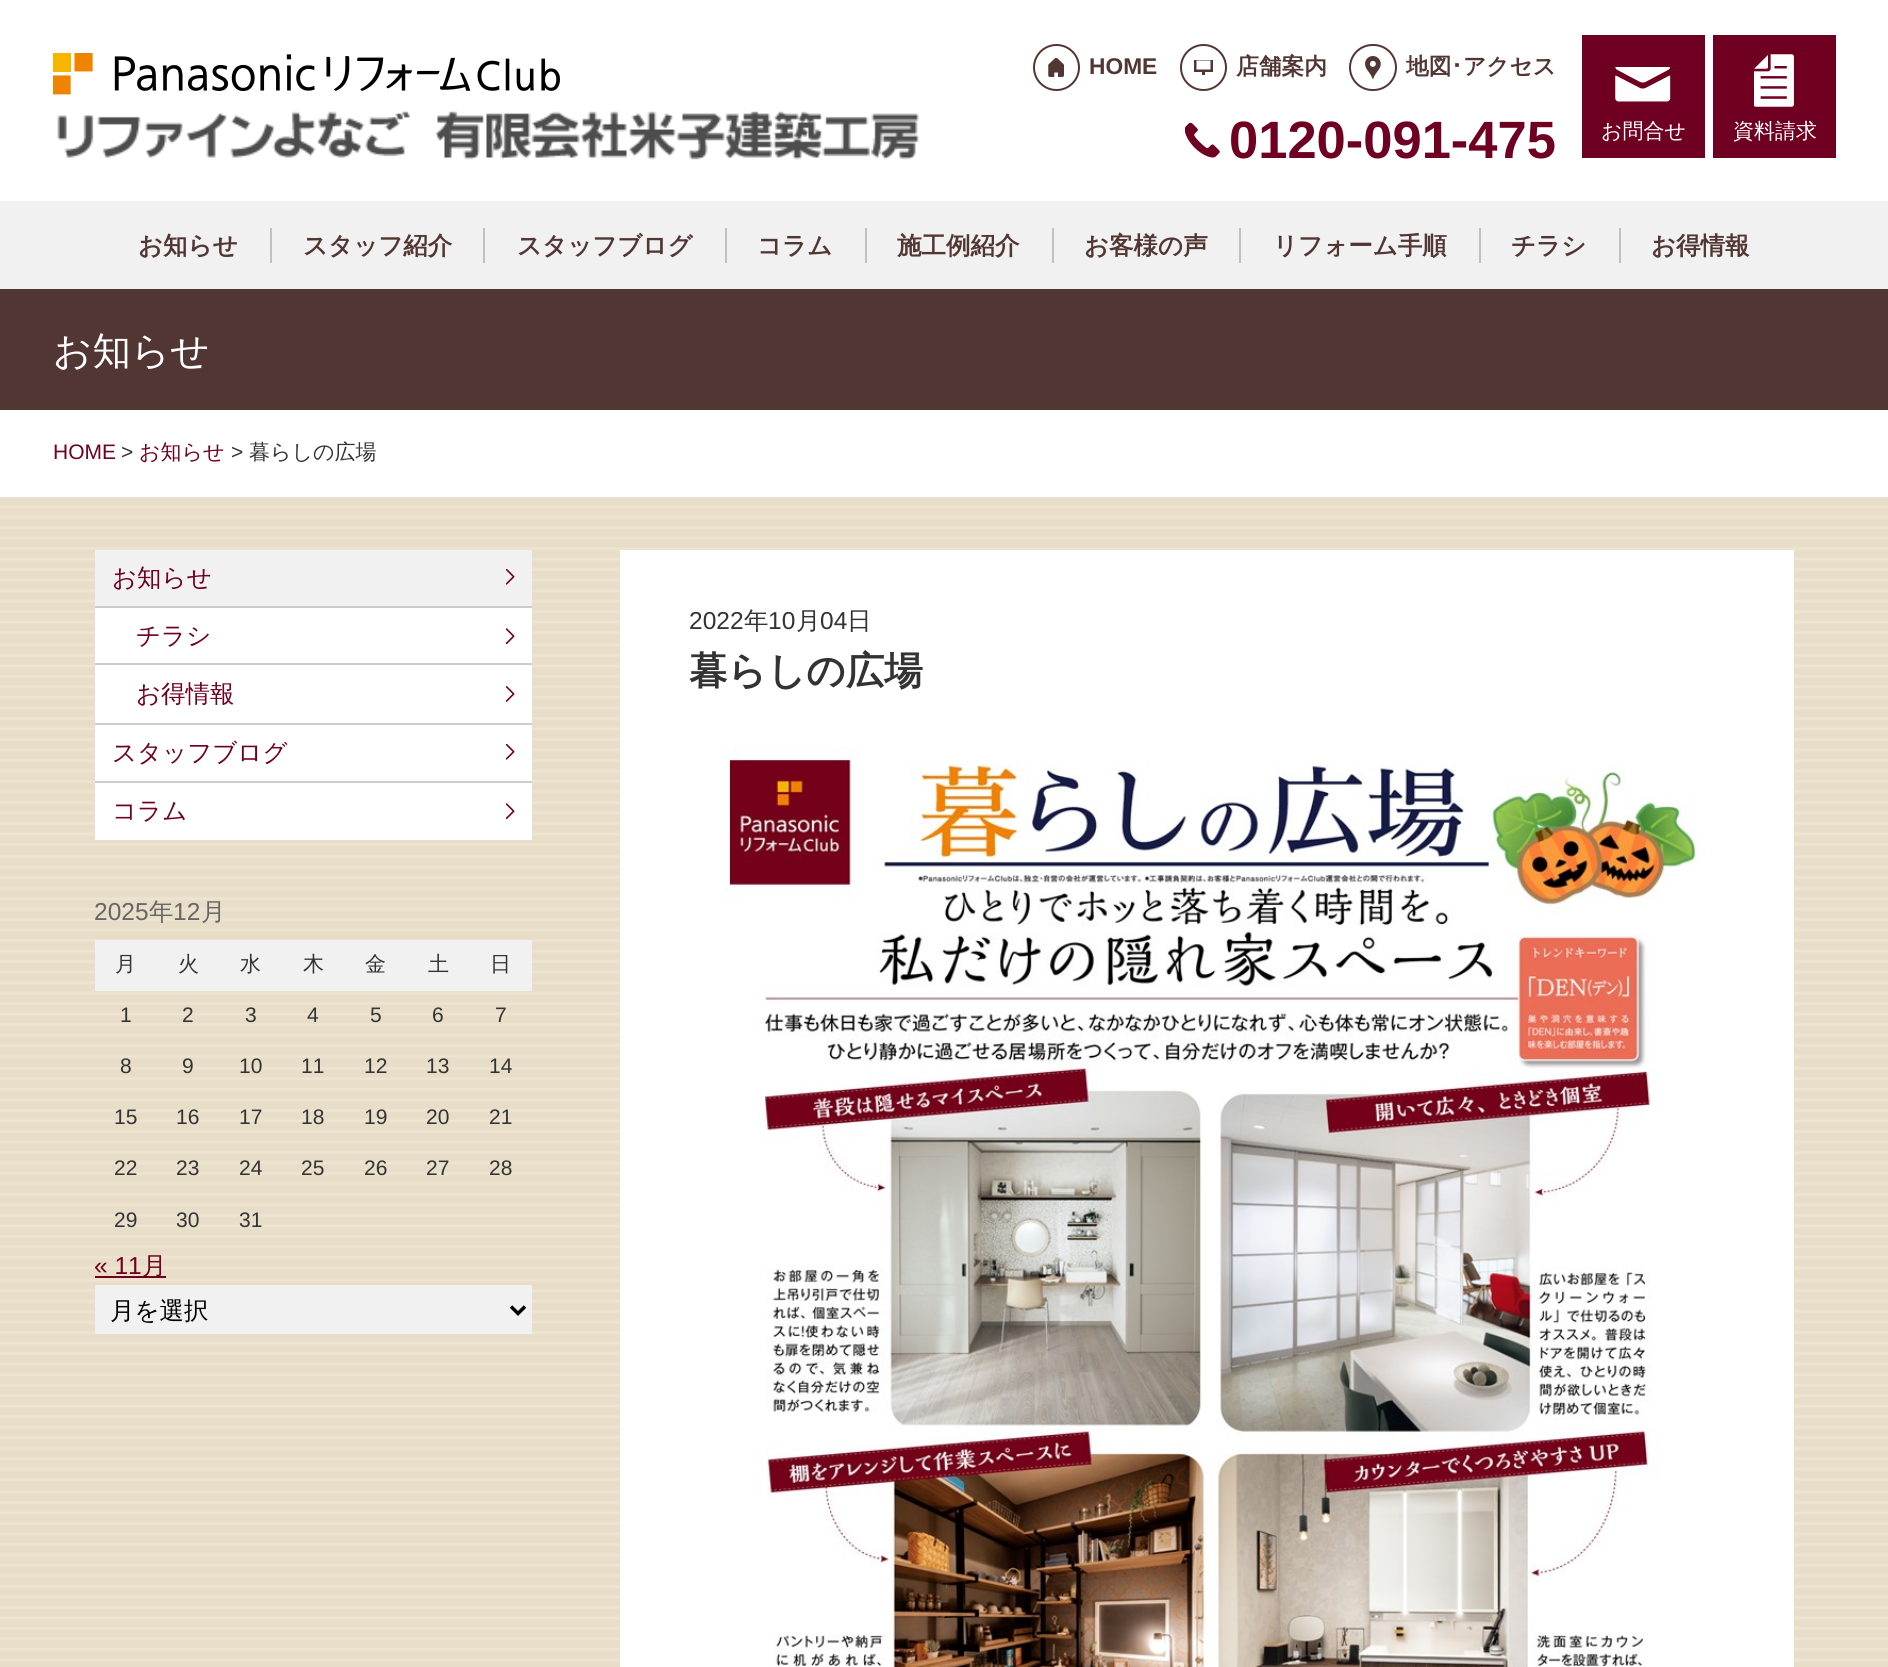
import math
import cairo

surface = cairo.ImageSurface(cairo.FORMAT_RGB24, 1888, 1667)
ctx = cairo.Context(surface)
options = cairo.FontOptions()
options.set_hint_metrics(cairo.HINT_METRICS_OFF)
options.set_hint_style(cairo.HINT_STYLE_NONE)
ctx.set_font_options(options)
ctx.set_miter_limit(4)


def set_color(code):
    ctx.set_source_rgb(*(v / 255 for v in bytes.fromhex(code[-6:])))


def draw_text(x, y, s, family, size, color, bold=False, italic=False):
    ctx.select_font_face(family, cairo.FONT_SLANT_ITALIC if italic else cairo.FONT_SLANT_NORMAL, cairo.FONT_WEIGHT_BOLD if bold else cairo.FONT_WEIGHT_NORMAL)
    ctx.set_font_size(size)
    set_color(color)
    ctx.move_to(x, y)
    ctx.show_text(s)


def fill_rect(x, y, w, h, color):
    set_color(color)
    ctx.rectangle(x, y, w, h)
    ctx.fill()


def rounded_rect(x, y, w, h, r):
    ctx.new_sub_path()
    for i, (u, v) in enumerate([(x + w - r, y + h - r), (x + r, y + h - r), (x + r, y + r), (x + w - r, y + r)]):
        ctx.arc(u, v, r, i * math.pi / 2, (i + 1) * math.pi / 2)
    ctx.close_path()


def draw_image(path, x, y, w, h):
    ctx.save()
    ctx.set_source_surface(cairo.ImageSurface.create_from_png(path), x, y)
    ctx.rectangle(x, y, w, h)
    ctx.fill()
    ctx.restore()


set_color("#ffffff")
ctx.paint()
draw_image("assets/img1.png", 0, 497, 1888, 1170)
draw_image("assets/img2.png", 53, 53, 507, 42)
draw_image("assets/img3.png", 57, 111, 863, 49)
draw_image("assets/img4.png", 1048, 58, 16, 19)
ctx.arc(1056.5, 67.5, 22.5, 0, 2 * math.pi)
set_color("#523634")
ctx.stroke()
draw_text(1089, 74, "HOME", "Liberation Sans", 22.75, "#523634", bold=True)
ctx.save()
ctx.rectangle(1194, 60, 19, 15)
ctx.clip()
ctx.rectangle(1195.25, 59.25, 16.5, 11.5)
ctx.set_line_width(2.5)
ctx.stroke()
ctx.restore()
fill_rect(1202, 71, 3, 4, "#523634")
ctx.arc(1203.5, 67.5, 22.5, 0, 2 * math.pi)
ctx.stroke()
draw_text(1236, 74, "店舗案内", "WenQuanYi Zen Hei", 22.75, "#523634", bold=True)
draw_image("assets/img5.png", 1365, 56, 16, 23)
rounded_rect(1350, 45, 46, 45, 22.5)
ctx.stroke()
draw_text(1406, 74, "地図", "WenQuanYi Zen Hei", 22.75, "#523634", bold=True)
draw_text(1451, 74, "･", "IPAPGothic", 22.75, "#523634", bold=True)
draw_text(1463, 74, "アクセス", "WenQuanYi Zen Hei", 22.75, "#523634", bold=True)
draw_image("assets/img6.png", 1185, 123, 35, 35)
draw_text(1229, 158, "0120-091-475", "Liberation Sans", 52.5, "#6f0021", bold=True)
fill_rect(1582, 35, 123, 123, "#6f0021")
draw_image("assets/img7.png", 1615, 67, 56, 35)
draw_text(1601, 138, "お問合せ", "WenQuanYi Zen Hei Medium", 21, "#ffffff")
fill_rect(1713, 35, 123, 123, "#6f0021")
draw_image("assets/img8.png", 1754, 54, 40, 53)
draw_text(1733, 138, "資料請求", "WenQuanYi Zen Hei Medium", 21, "#ffffff")
fill_rect(0, 201, 1888, 88, "#f1f1f1")
draw_text(138, 254, "お知らせ", "WenQuanYi Zen Hei", 24.5, "#523634", bold=True)
fill_rect(270, 228, 2, 35, "#c1c1c1")
draw_text(303, 254, "スタッフ紹介", "WenQuanYi Zen Hei", 24.5, "#523634", bold=True)
fill_rect(483, 228, 2, 35, "#c1c1c1")
draw_text(517, 254, "スタッフブログ", "WenQuanYi Zen Hei", 24.5, "#523634", bold=True)
fill_rect(725, 228, 2, 35, "#c1c1c1")
draw_text(757, 254, "コラム", "WenQuanYi Zen Hei", 24.5, "#523634", bold=True)
fill_rect(865, 228, 2, 35, "#c1c1c1")
draw_text(897, 254, "施工例紹介", "WenQuanYi Zen Hei", 24.5, "#523634", bold=True)
fill_rect(1052, 228, 2, 35, "#c1c1c1")
draw_text(1084, 254, "お客様の声", "WenQuanYi Zen Hei", 24.5, "#523634", bold=True)
fill_rect(1239, 228, 2, 35, "#c1c1c1")
draw_text(1273, 254, "リフォーム手順", "WenQuanYi Zen Hei", 24.5, "#523634", bold=True)
fill_rect(1479, 228, 2, 35, "#c1c1c1")
draw_text(1511, 254, "チラシ", "WenQuanYi Zen Hei", 24.5, "#523634", bold=True)
fill_rect(1619, 228, 2, 35, "#c1c1c1")
draw_text(1651, 254, "お得情報", "WenQuanYi Zen Hei", 24.5, "#523634", bold=True)
fill_rect(0, 289, 1888, 121, "#523634")
draw_text(53, 364, "お知らせ", "WenQuanYi Zen Hei Medium", 38.5, "#ffffff")
draw_text(53, 459, "HOME", "Liberation Sans", 21, "#6f0021")
draw_text(121, 459, ">", "Liberation Sans", 21, "#333333")
draw_text(139, 459, "お知らせ", "WenQuanYi Zen Hei Medium", 21, "#6f0021")
draw_text(231, 459, ">", "Liberation Sans", 21, "#333333")
draw_text(249, 459, "暮らしの広場", "WenQuanYi Zen Hei Medium", 21, "#333333")
fill_rect(95, 608, 437, 232, "#ffffff")
fill_rect(95, 550, 437, 56, "#f1f1f1")
draw_image("assets/img9.png", 506, 569, 9, 16)
draw_text(112, 586, "お知らせ", "WenQuanYi Zen Hei Medium", 24.5, "#6f0021")
fill_rect(95, 606, 437, 2, "#cccccc")
draw_image("assets/img10.png", 506, 628, 9, 16)
draw_text(136, 644, "チラシ", "WenQuanYi Zen Hei Medium", 24.5, "#6f0021")
fill_rect(95, 663, 437, 2, "#cccccc")
draw_image("assets/img11.png", 506, 686, 9, 16)
draw_text(136, 702, "お得情報", "WenQuanYi Zen Hei Medium", 24.5, "#6f0021")
fill_rect(95, 723, 437, 2, "#cccccc")
draw_image("assets/img12.png", 506, 744, 9, 16)
draw_text(112, 761, "スタッフブログ", "WenQuanYi Zen Hei Medium", 24.5, "#6f0021")
fill_rect(95, 781, 437, 2, "#cccccc")
draw_image("assets/img10.png", 506, 803, 9, 16)
draw_text(112, 819, "コラム", "WenQuanYi Zen Hei Medium", 24.5, "#6f0021")
draw_text(94, 920, "2025", "Liberation Sans", 24.5, "#666666")
draw_text(149, 920, "年", "WenQuanYi Zen Hei Medium", 24.5, "#666666")
draw_text(173, 920, "12", "Liberation Sans", 24.5, "#666666")
draw_text(201, 920, "月", "WenQuanYi Zen Hei Medium", 24.5, "#666666")
fill_rect(95, 940, 437, 51, "#f1f1f1")
draw_text(115, 971, "月", "WenQuanYi Zen Hei Medium", 21, "#333333")
draw_text(178, 971, "火", "WenQuanYi Zen Hei Medium", 21, "#333333")
draw_text(240, 971, "水", "WenQuanYi Zen Hei Medium", 21, "#333333")
draw_text(303, 971, "木", "WenQuanYi Zen Hei Medium", 21, "#333333")
draw_text(365, 971, "金", "WenQuanYi Zen Hei Medium", 21, "#333333")
draw_text(428, 971, "土", "WenQuanYi Zen Hei Medium", 21, "#333333")
draw_text(490, 971, "日", "WenQuanYi Zen Hei Medium", 21, "#333333")
draw_text(120, 1022, "1", "Liberation Sans", 21, "#333333")
draw_text(182, 1022, "2", "Liberation Sans", 21, "#333333")
draw_text(245, 1022, "3", "Liberation Sans", 21, "#333333")
draw_text(307, 1022, "4", "Liberation Sans", 21, "#333333")
draw_text(370, 1022, "5", "Liberation Sans", 21, "#333333")
draw_text(432, 1022, "6", "Liberation Sans", 21, "#333333")
draw_text(495, 1022, "7", "Liberation Sans", 21, "#333333")
draw_text(120, 1073, "8", "Liberation Sans", 21, "#333333")
draw_text(182, 1073, "9", "Liberation Sans", 21, "#333333")
draw_text(239, 1073, "10", "Liberation Sans", 21, "#333333")
draw_text(301, 1073, "11", "Liberation Sans", 21, "#333333")
draw_text(364, 1073, "12", "Liberation Sans", 21, "#333333")
draw_text(426, 1073, "13", "Liberation Sans", 21, "#333333")
draw_text(489, 1073, "14", "Liberation Sans", 21, "#333333")
draw_text(114, 1124, "15", "Liberation Sans", 21, "#333333")
draw_text(176, 1124, "16", "Liberation Sans", 21, "#333333")
draw_text(239, 1124, "17", "Liberation Sans", 21, "#333333")
draw_text(301, 1124, "18", "Liberation Sans", 21, "#333333")
draw_text(364, 1124, "19", "Liberation Sans", 21, "#333333")
draw_text(426, 1124, "20", "Liberation Sans", 21, "#333333")
draw_text(489, 1124, "21", "Liberation Sans", 21, "#333333")
draw_text(114, 1175, "22", "Liberation Sans", 21, "#333333")
draw_text(176, 1175, "23", "Liberation Sans", 21, "#333333")
draw_text(239, 1175, "24", "Liberation Sans", 21, "#333333")
draw_text(301, 1175, "25", "Liberation Sans", 21, "#333333")
draw_text(364, 1175, "26", "Liberation Sans", 21, "#333333")
draw_text(426, 1175, "27", "Liberation Sans", 21, "#333333")
draw_text(489, 1175, "28", "Liberation Sans", 21, "#333333")
draw_text(114, 1227, "29", "Liberation Sans", 21, "#333333")
draw_text(176, 1227, "30", "Liberation Sans", 21, "#333333")
draw_text(239, 1227, "31", "Liberation Sans", 21, "#333333")
draw_text(94, 1274, "« 11", "Liberation Sans", 24.5, "#6f0021")
fill_rect(95, 1276, 71, 2, "#6f0021")
draw_text(142, 1274, "月", "WenQuanYi Zen Hei Medium", 24.5, "#6f0021")
fill_rect(95, 1285, 437, 49, "#f1f1f1")
ctx.new_path()
ctx.move_to(511, 1306.5)
ctx.line_to(518, 1313.5)
ctx.line_to(525, 1306.5)
set_color("#000000")
ctx.set_line_width(3.5)
ctx.stroke()
draw_text(110, 1319, "月を選択", "WenQuanYi Zen Hei Medium", 24.5, "#000000")
fill_rect(620, 550, 1174, 1117, "#ffffff")
draw_text(689, 629, "2022", "Liberation Sans", 24.5, "#333333")
draw_text(744, 629, "年", "WenQuanYi Zen Hei Medium", 24.5, "#333333")
draw_text(768, 629, "10", "Liberation Sans", 24.5, "#333333")
draw_text(796, 629, "月", "WenQuanYi Zen Hei Medium", 24.5, "#333333")
draw_text(820, 629, "04", "Liberation Sans", 24.5, "#333333")
draw_text(847, 629, "日", "WenQuanYi Zen Hei Medium", 24.5, "#333333")
draw_text(689, 684, "暮らしの広場", "WenQuanYi Zen Hei", 38.5, "#333333", bold=True)
draw_image("assets/img13.png", 723, 747, 976, 920)
surface.write_to_png("output.png")
